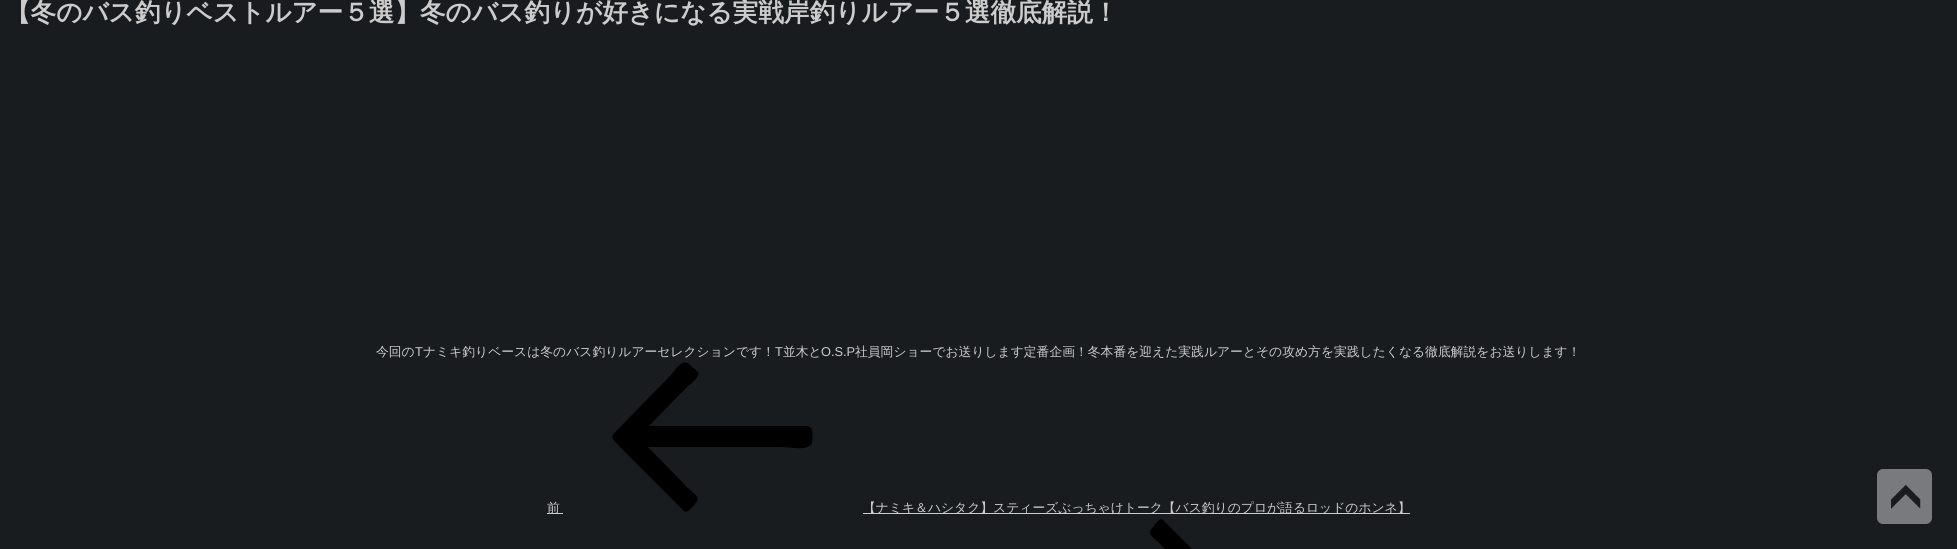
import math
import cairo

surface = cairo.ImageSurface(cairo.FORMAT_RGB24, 1957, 549)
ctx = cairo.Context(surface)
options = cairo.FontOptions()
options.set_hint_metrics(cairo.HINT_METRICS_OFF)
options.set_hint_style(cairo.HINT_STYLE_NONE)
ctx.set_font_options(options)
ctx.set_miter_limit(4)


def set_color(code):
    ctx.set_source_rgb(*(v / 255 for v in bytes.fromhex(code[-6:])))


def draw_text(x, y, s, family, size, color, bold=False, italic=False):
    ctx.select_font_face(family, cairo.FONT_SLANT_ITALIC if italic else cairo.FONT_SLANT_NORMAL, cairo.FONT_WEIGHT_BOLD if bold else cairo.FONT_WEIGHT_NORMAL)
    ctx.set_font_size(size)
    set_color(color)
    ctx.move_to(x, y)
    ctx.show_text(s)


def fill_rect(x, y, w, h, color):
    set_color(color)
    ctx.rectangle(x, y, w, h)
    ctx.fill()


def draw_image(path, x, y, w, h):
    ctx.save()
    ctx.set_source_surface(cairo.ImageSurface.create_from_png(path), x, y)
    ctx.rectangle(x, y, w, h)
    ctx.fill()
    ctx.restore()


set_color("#191c1e")
ctx.paint()
draw_text(5, 21, "【冬のバス釣りベストルアー５選】冬のバス釣りが好きになる実戦岸釣りルアー５選徹底解説！", "WenQuanYi Zen Hei", 25.6, "#cccccc", bold=True)
draw_text(376, 356, "今回の", "WenQuanYi Zen Hei Medium", 12.8, "#cccccc")
draw_text(415, 356, "T", "Liberation Sans", 12.8, "#cccccc")
draw_text(423, 356, "ナミキ釣りベースは冬のバス釣りルアーセレクションです！", "WenQuanYi Zen Hei Medium", 12.8, "#cccccc")
draw_text(775, 356, "T", "Liberation Sans", 12.8, "#cccccc")
draw_text(783, 356, "並木と", "WenQuanYi Zen Hei Medium", 12.8, "#cccccc")
draw_text(821, 356, "O.S.P", "Liberation Sans", 12.8, "#cccccc")
draw_text(855, 356, "社員岡ショーでお送りします定番企画！冬本番を迎えた実践ルアーとその攻め方を実践したくなる徹底解説をお送りします！", "WenQuanYi Zen Hei Medium", 12.8, "#cccccc")
fill_rect(547, 513, 16, 1, "#cccccc")
draw_text(547, 512, "前", "WenQuanYi Zen Hei Medium", 12.8, "#cccccc")
set_color("#000000")
ctx.new_path()
ctx.move_to(811, 428)
ctx.line_to(808, 426)
ctx.line_to(649, 426)
ctx.line_to(689, 385)
ctx.curve_to(690, 385, 701, 376, 698, 372)
ctx.line_to(688, 363)
ctx.curve_to(681, 359, 672, 374, 671, 375)
ctx.line_to(625, 422)
ctx.curve_to(608, 440, 608, 434, 625, 452)
ctx.line_to(684, 511)
ctx.curve_to(687, 514, 692, 507, 694, 505)
ctx.curve_to(702, 497, 696, 496, 688, 488)
ctx.line_to(648, 447)
ctx.line_to(780, 447)
ctx.curve_to(794, 447, 802, 451, 811, 445)
ctx.curve_to(813, 443, 813, 430, 811, 428)
ctx.close_path()
ctx.fill()
fill_rect(863, 513, 547, 1, "#cccccc")
draw_text(863, 512, "【ナミキ＆ハシタク】スティーズぶっちゃけトーク【バス釣りのプロが語るロッドのホンネ】", "WenQuanYi Zen Hei Medium", 12.8, "#cccccc")
set_color("#000000")
ctx.new_path()
ctx.move_to(1037, 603)
ctx.line_to(1040, 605)
ctx.line_to(1199, 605)
ctx.line_to(1158, 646)
ctx.curve_to(1158, 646, 1146, 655, 1149, 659)
ctx.line_to(1158, 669)
ctx.curve_to(1165, 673, 1175, 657, 1176, 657)
ctx.line_to(1222, 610)
ctx.curve_to(1240, 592, 1239, 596, 1222, 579)
ctx.line_to(1163, 520)
ctx.curve_to(1160, 517, 1155, 524, 1154, 526)
ctx.curve_to(1146, 534, 1151, 535, 1159, 543)
ctx.line_to(1199, 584)
ctx.line_to(1040, 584)
ctx.curve_to(1034, 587, 1035, 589, 1035, 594)
ctx.curve_to(1035, 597, 1035, 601, 1037, 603)
ctx.close_path()
ctx.fill()
draw_image("assets/img1.png", 1877, 469, 55, 55)
surface.write_to_png("output.png")
